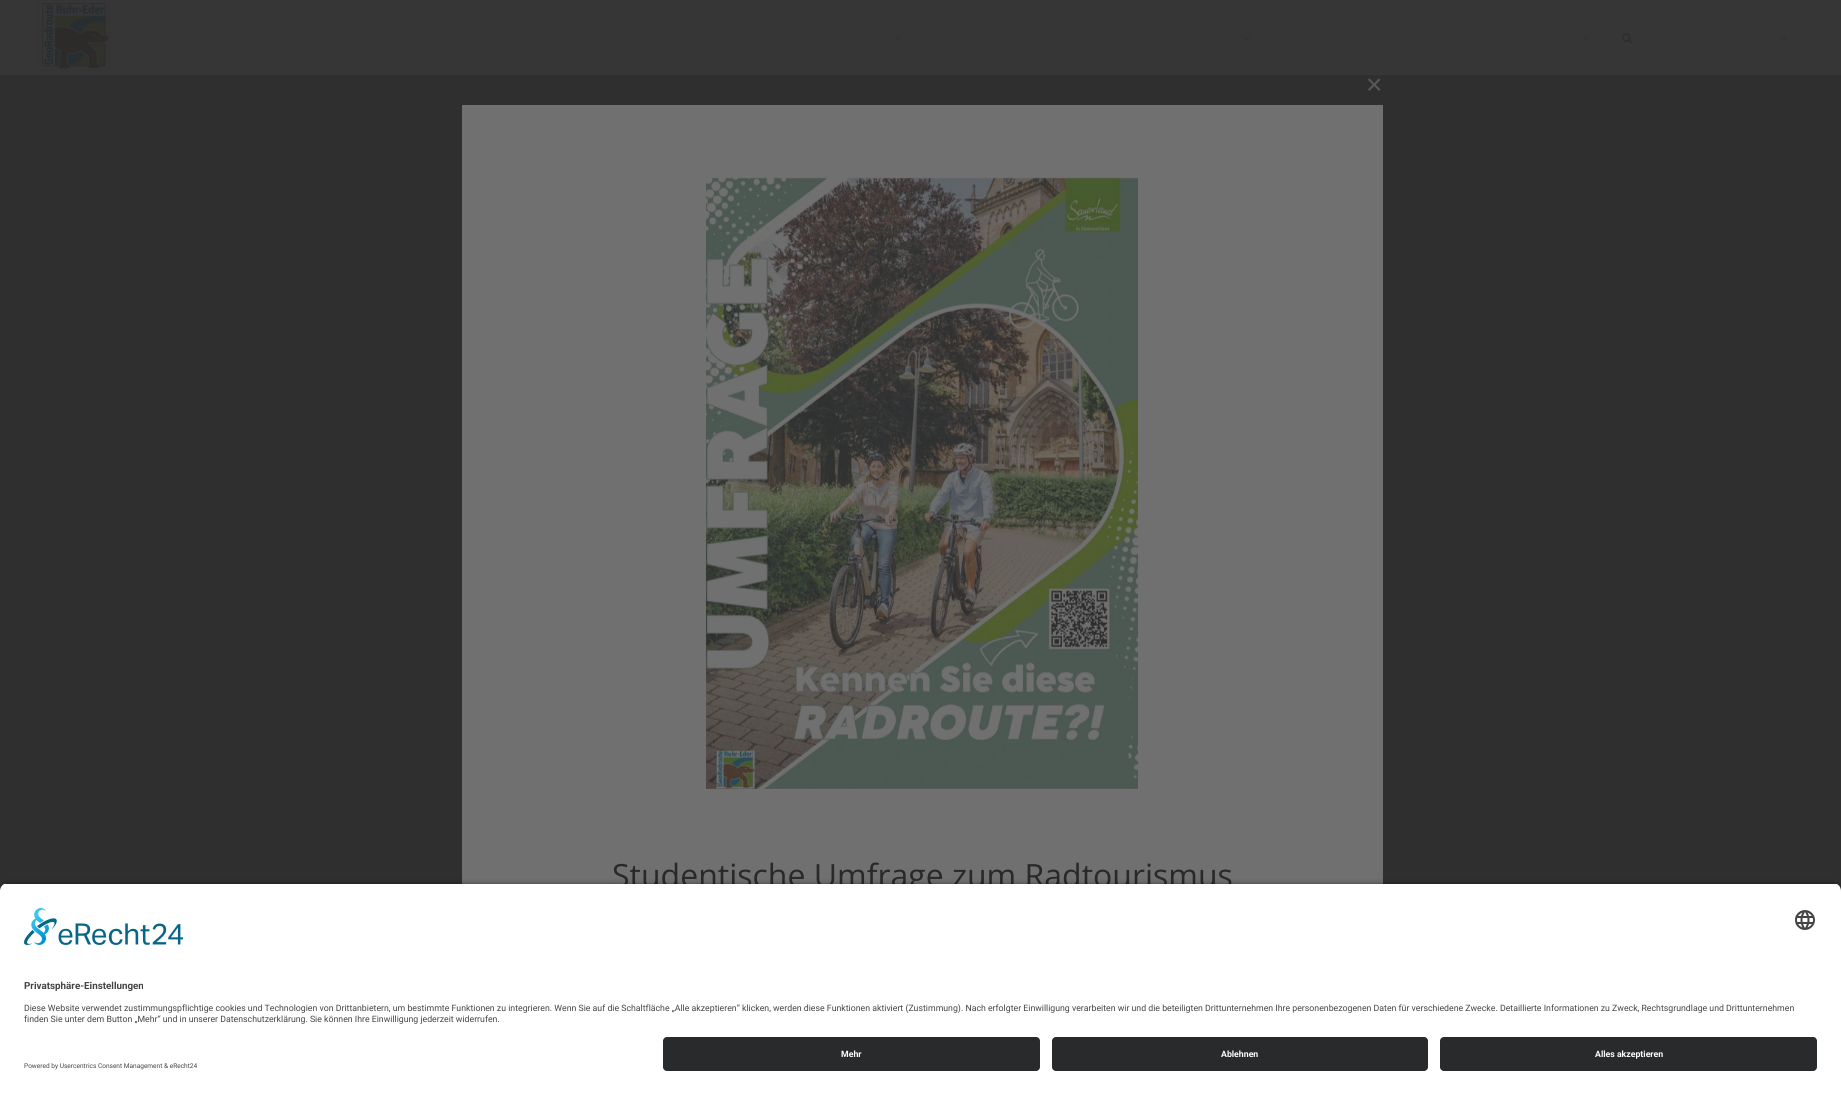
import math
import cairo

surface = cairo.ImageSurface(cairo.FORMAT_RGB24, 1841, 1095)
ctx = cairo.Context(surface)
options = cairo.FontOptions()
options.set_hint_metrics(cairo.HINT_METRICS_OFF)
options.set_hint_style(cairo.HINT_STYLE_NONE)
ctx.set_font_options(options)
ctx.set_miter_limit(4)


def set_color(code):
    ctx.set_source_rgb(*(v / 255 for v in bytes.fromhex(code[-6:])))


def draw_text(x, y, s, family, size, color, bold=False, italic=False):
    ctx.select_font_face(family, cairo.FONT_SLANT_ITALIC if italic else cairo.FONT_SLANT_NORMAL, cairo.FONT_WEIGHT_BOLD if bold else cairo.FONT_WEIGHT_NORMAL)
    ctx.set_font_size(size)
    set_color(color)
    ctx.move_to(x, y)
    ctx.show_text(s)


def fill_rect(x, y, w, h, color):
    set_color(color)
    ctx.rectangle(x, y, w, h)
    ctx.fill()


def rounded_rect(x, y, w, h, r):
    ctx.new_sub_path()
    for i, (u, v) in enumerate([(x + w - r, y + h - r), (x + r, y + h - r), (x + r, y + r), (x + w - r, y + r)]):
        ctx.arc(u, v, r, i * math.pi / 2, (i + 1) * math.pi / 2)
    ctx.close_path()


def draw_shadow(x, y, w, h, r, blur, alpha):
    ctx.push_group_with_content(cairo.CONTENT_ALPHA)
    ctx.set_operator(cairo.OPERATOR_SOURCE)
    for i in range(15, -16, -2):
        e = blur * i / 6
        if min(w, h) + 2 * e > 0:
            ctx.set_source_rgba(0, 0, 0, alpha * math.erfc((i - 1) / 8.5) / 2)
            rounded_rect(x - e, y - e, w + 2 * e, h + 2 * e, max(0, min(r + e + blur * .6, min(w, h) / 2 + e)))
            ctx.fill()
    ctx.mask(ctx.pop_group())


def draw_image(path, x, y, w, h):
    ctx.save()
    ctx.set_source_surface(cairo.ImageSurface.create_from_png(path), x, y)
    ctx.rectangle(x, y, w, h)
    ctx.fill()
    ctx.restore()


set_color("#363636")
ctx.paint()
fill_rect(0, 75, 1841, 816, "#2f2f2f")
draw_image("assets/img1.png", 38, 0, 72, 71)
draw_image("assets/img2.png", 895, 36, 7, 5)
draw_image("assets/img2.png", 1243, 36, 7, 5)
draw_image("assets/img2.png", 1583, 36, 7, 5)
draw_image("assets/img3.png", 1622, 33, 11, 11)
draw_image("assets/img2.png", 1780, 36, 7, 5)
draw_text(1366, 94, "×", "Liberation Sans", 28, "#595959")
fill_rect(462, 105, 921, 779, "#707070")
draw_image("assets/img4.png", 706, 177, 432, 612)
draw_text(612, 887, "Studentische Umfrage zum Radtourismus", "Open Sans", 32, "#292929")
set_color("#000000")
draw_shadow(0, 886, 1841, 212, 8, 3.5, 0.8)
ctx.save()
ctx.new_path()
ctx.move_to(8, 883)
ctx.line_to(1833, 883)
ctx.curve_to(1837.5, 883, 1841, 886.5, 1841, 891)
ctx.line_to(1841, 1029)
ctx.line_to(0, 1029)
ctx.line_to(0, 891)
ctx.curve_to(0, 886.5, 3.5, 883, 8, 883)
ctx.close_path()
ctx.clip()
fill_rect(0, 884, 1841, 145, "#ffffff")
ctx.restore()
draw_image("assets/img5.png", 24, 908, 160, 37)
draw_image("assets/img6.png", 1795, 910, 20, 20)
draw_text(24, 989, "Privatsphäre-Einstellungen", "Roboto", 9.8, "#444444", bold=True)
draw_text(24, 1011, "Diese Website verwendet zustimmungspflichtige cookies und Technologien von Drittanbietern, um bestimmte Funktionen zu integrieren. Wenn Sie auf die Schaltfläche „Alle akzeptieren“ klicken, werden diese Funktionen aktiviert (Zustimmung). Nach erfolgter Einwilligung verarbeiten wir und die beteiligten Drittunternehmen Ihre personenbezogenen Daten für verschiedene Zwecke. Detaillierte Informationen zu Zweck, Rechtsgrundlage und Drittunternehmen", "Roboto", 8.75, "#444444")
draw_text(24, 1022, "finden Sie unter dem Button „Mehr“ und in unserer Datenschutzerklärung. Sie können Ihre Einwilligung jederzeit widerrufen.", "Roboto", 8.75, "#444444")
fill_rect(0, 1029, 1841, 66, "#ffffff")
set_color("#292a2b")
rounded_rect(663, 1037, 377, 34, 4)
ctx.fill()
draw_text(841, 1057, "Mehr", "Roboto", 8.75, "#ffffff", bold=True)
set_color("#292a2b")
rounded_rect(1052, 1037, 376, 34, 4)
ctx.fill()
draw_text(1221, 1057, "Ablehnen", "Roboto", 8.75, "#ffffff", bold=True)
set_color("#292a2b")
rounded_rect(1440, 1037, 377, 34, 4)
ctx.fill()
draw_text(1595, 1057, "Alles akzeptieren", "Roboto", 8.75, "#ffffff", bold=True)
draw_text(24, 1068, "Powered by Usercentrics Consent Management & eRecht24", "Roboto", 6.55, "#444444")
surface.write_to_png("output.png")
